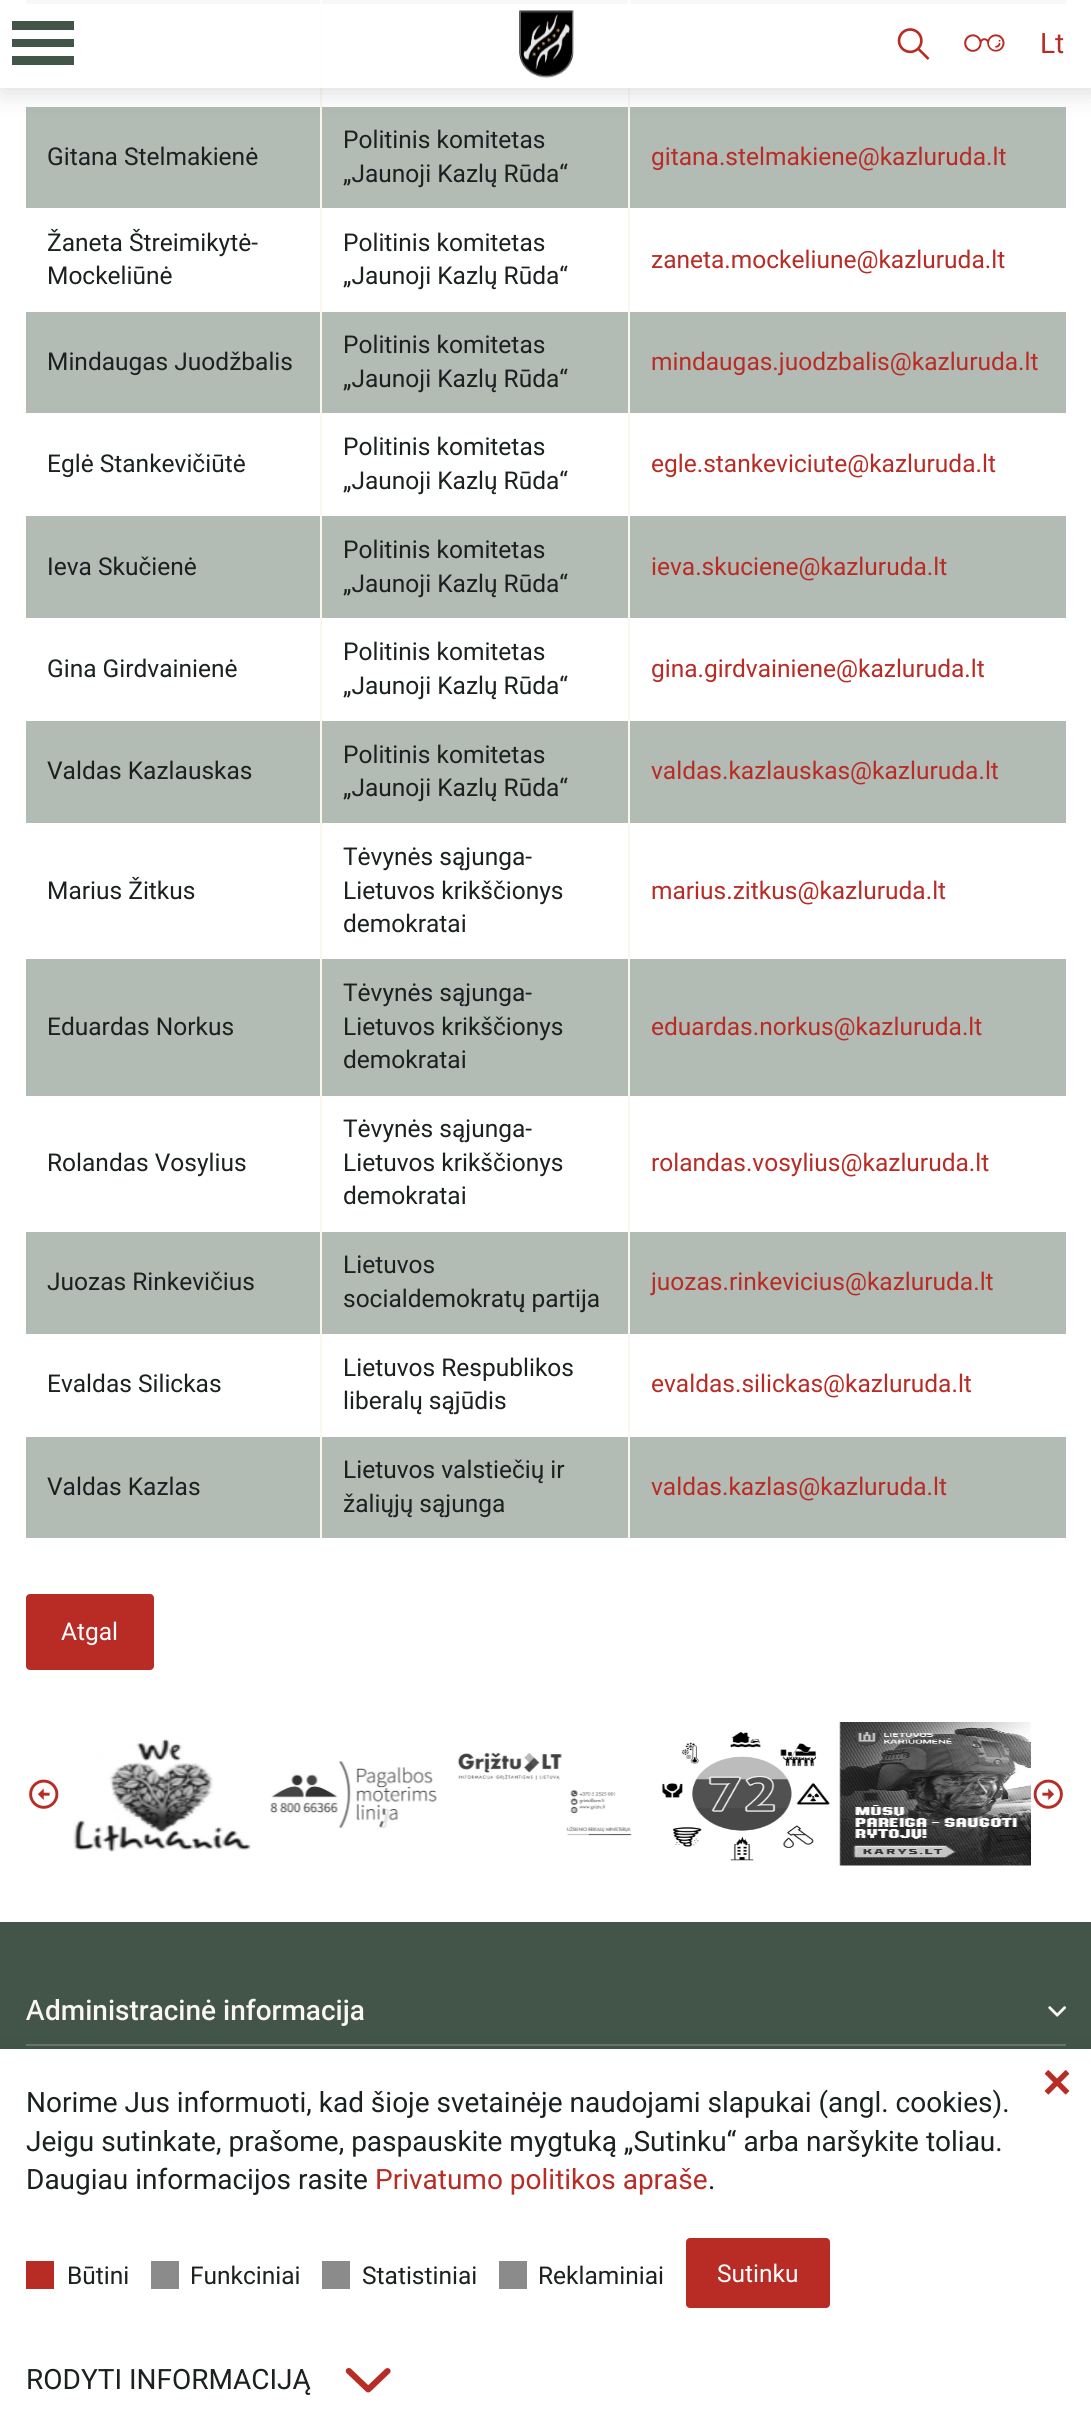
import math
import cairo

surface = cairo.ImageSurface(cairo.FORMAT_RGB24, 1091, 2425)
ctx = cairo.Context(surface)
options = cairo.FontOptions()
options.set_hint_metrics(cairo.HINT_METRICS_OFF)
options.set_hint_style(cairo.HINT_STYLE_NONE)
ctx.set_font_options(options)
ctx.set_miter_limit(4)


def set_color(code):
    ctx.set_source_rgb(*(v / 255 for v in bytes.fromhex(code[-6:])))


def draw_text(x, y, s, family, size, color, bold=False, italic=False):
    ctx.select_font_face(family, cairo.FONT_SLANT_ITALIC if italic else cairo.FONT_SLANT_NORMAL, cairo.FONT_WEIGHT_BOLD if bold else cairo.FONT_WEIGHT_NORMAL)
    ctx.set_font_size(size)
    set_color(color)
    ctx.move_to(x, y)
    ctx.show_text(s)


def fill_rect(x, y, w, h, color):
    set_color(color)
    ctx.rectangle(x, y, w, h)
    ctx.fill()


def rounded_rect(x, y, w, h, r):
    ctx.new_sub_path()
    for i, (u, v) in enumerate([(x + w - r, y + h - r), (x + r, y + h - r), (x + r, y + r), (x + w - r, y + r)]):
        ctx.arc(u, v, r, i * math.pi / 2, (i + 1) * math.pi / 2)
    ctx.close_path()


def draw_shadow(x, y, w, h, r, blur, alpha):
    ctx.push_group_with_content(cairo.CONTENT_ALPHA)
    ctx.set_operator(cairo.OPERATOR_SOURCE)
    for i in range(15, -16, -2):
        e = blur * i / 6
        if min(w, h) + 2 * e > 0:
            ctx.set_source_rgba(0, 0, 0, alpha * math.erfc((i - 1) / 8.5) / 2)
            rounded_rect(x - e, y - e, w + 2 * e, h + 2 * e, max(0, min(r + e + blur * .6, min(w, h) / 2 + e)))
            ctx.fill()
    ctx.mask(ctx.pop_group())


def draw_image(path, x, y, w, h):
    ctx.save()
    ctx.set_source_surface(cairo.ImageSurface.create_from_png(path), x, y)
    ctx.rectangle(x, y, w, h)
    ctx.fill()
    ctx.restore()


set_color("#ffffff")
ctx.paint()
fill_rect(26, 0, 1040, 4, "#b3bbb5")
fill_rect(26, 107, 294, 101, "#b3bbb5")
fill_rect(322, 107, 306, 101, "#b3bbb5")
fill_rect(630, 107, 436, 101, "#b3bbb5")
fill_rect(320, 0, 2, 1538, "#faf7ee")
fill_rect(628, 0, 2, 1538, "#faf7ee")
ctx.save()
ctx.set_fill_rule(cairo.FILL_RULE_EVEN_ODD)
ctx.new_path()
ctx.move_to(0, 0)
ctx.line_to(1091, 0)
ctx.line_to(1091, 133)
ctx.line_to(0, 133)
ctx.close_path()
ctx.move_to(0, 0)
ctx.line_to(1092, 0)
ctx.line_to(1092, 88)
ctx.line_to(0, 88)
ctx.close_path()
ctx.clip()
set_color("#1b2121")
draw_shadow(2, 5, 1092, 88, 0, 13, 0.15)
ctx.restore()
ctx.set_source_rgba(1, 1, 1, 0.9)
ctx.rectangle(0, 0, 1091, 88)
ctx.fill()
fill_rect(12, 21, 62, 9, "#435448")
fill_rect(12, 39, 62, 8, "#435448")
fill_rect(12, 56, 62, 9, "#435448")
draw_image("assets/img1.png", 519, 10, 55, 68)
draw_image("assets/img2.png", 897, 28, 33, 32)
draw_image("assets/img3.png", 964, 34, 41, 18)
draw_text(1040, 53, "Lt", "Roboto", 28, "#b82c25")
draw_text(47, 165, "Gitana Stelmakienė", "Roboto", 24.5, "#1b2121")
draw_text(343, 148, "Politinis komitetas", "Roboto", 24.5, "#1b2121")
draw_text(343, 182, "„Jaunoji Kazlų Rūda“", "Roboto", 24.5, "#1b2121")
draw_text(651, 165, "gitana.stelmakiene@kazluruda.lt", "Roboto", 24.5, "#b82c25")
draw_text(47, 251, "Žaneta Štreimikytė-", "Roboto", 24.5, "#1b2121")
draw_text(47, 284, "Mockeliūnė", "Roboto", 24.5, "#1b2121")
draw_text(343, 251, "Politinis komitetas", "Roboto", 24.5, "#1b2121")
draw_text(343, 284, "„Jaunoji Kazlų Rūda“", "Roboto", 24.5, "#1b2121")
draw_text(651, 268, "zaneta.mockeliune@kazluruda.lt", "Roboto", 24.5, "#b82c25")
fill_rect(26, 312, 294, 101, "#b3bbb5")
draw_text(47, 370, "Mindaugas Juodžbalis", "Roboto", 24.5, "#1b2121")
fill_rect(322, 312, 306, 101, "#b3bbb5")
draw_text(343, 353, "Politinis komitetas", "Roboto", 24.5, "#1b2121")
draw_text(343, 387, "„Jaunoji Kazlų Rūda“", "Roboto", 24.5, "#1b2121")
fill_rect(630, 312, 436, 101, "#b3bbb5")
draw_text(651, 370, "mindaugas.juodzbalis@kazluruda.lt", "Roboto", 24.5, "#b82c25")
draw_text(47, 472, "Eglė Stankevičiūtė", "Roboto", 24.5, "#1b2121")
draw_text(343, 455, "Politinis komitetas", "Roboto", 24.5, "#1b2121")
draw_text(343, 489, "„Jaunoji Kazlų Rūda“", "Roboto", 24.5, "#1b2121")
draw_text(651, 472, "egle.stankeviciute@kazluruda.lt", "Roboto", 24.5, "#b82c25")
fill_rect(26, 516, 294, 102, "#b3bbb5")
draw_text(47, 575, "Ieva Skučienė", "Roboto", 24.5, "#1b2121")
fill_rect(322, 516, 306, 102, "#b3bbb5")
draw_text(343, 558, "Politinis komitetas", "Roboto", 24.5, "#1b2121")
draw_text(343, 592, "„Jaunoji Kazlų Rūda“", "Roboto", 24.5, "#1b2121")
fill_rect(630, 516, 436, 102, "#b3bbb5")
draw_text(651, 575, "ieva.skuciene@kazluruda.lt", "Roboto", 24.5, "#b82c25")
draw_text(47, 677, "Gina Girdvainienė", "Roboto", 24.5, "#1b2121")
draw_text(343, 660, "Politinis komitetas", "Roboto", 24.5, "#1b2121")
draw_text(343, 694, "„Jaunoji Kazlų Rūda“", "Roboto", 24.5, "#1b2121")
draw_text(651, 677, "gina.girdvainiene@kazluruda.lt", "Roboto", 24.5, "#b82c25")
fill_rect(26, 721, 294, 102, "#b3bbb5")
draw_text(47, 779, "Valdas Kazlauskas", "Roboto", 24.5, "#1b2121")
fill_rect(322, 721, 306, 102, "#b3bbb5")
draw_text(343, 763, "Politinis komitetas", "Roboto", 24.5, "#1b2121")
draw_text(343, 796, "„Jaunoji Kazlų Rūda“", "Roboto", 24.5, "#1b2121")
fill_rect(630, 721, 436, 102, "#b3bbb5")
draw_text(651, 779, "valdas.kazlauskas@kazluruda.lt", "Roboto", 24.5, "#b82c25")
draw_text(47, 899, "Marius Žitkus", "Roboto", 24.5, "#1b2121")
draw_text(343, 865, "Tėvynės sąjunga-", "Roboto", 24.5, "#1b2121")
draw_text(343, 899, "Lietuvos krikščionys", "Roboto", 24.5, "#1b2121")
draw_text(343, 932, "demokratai", "Roboto", 24.5, "#1b2121")
draw_text(651, 899, "marius.zitkus@kazluruda.lt", "Roboto", 24.5, "#b82c25")
fill_rect(26, 959, 294, 137, "#b3bbb5")
draw_text(47, 1035, "Eduardas Norkus", "Roboto", 24.5, "#1b2121")
fill_rect(322, 959, 306, 137, "#b3bbb5")
draw_text(343, 1001, "Tėvynės sąjunga-", "Roboto", 24.5, "#1b2121")
draw_text(343, 1035, "Lietuvos krikščionys", "Roboto", 24.5, "#1b2121")
draw_text(343, 1068, "demokratai", "Roboto", 24.5, "#1b2121")
fill_rect(630, 959, 436, 137, "#b3bbb5")
draw_text(651, 1035, "eduardas.norkus@kazluruda.lt", "Roboto", 24.5, "#b82c25")
draw_text(47, 1171, "Rolandas Vosylius", "Roboto", 24.5, "#1b2121")
draw_text(343, 1137, "Tėvynės sąjunga-", "Roboto", 24.5, "#1b2121")
draw_text(343, 1171, "Lietuvos krikščionys", "Roboto", 24.5, "#1b2121")
draw_text(343, 1204, "demokratai", "Roboto", 24.5, "#1b2121")
draw_text(651, 1171, "rolandas.vosylius@kazluruda.lt", "Roboto", 24.5, "#b82c25")
fill_rect(26, 1232, 294, 102, "#b3bbb5")
draw_text(47, 1290, "Juozas Rinkevičius", "Roboto", 24.5, "#1b2121")
fill_rect(322, 1232, 306, 102, "#b3bbb5")
draw_text(343, 1273, "Lietuvos", "Roboto", 24.5, "#1b2121")
draw_text(343, 1307, "socialdemokratų partija", "Roboto", 24.5, "#1b2121")
fill_rect(630, 1232, 436, 102, "#b3bbb5")
draw_text(651, 1290, "juozas.rinkevicius@kazluruda.lt", "Roboto", 24.5, "#b82c25")
draw_text(47, 1392, "Evaldas Silickas", "Roboto", 24.5, "#1b2121")
draw_text(343, 1376, "Lietuvos Respublikos", "Roboto", 24.5, "#1b2121")
draw_text(343, 1409, "liberalų sąjūdis", "Roboto", 24.5, "#1b2121")
draw_text(651, 1392, "evaldas.silickas@kazluruda.lt", "Roboto", 24.5, "#b82c25")
fill_rect(26, 1437, 294, 101, "#b3bbb5")
draw_text(47, 1495, "Valdas Kazlas", "Roboto", 24.5, "#1b2121")
fill_rect(322, 1437, 306, 101, "#b3bbb5")
draw_text(343, 1478, "Lietuvos valstiečių ir", "Roboto", 24.5, "#1b2121")
draw_text(343, 1512, "žaliųjų sąjunga", "Roboto", 24.5, "#1b2121")
fill_rect(630, 1437, 436, 101, "#b3bbb5")
draw_text(651, 1495, "valdas.kazlas@kazluruda.lt", "Roboto", 24.5, "#b82c25")
rounded_rect(26, 1594, 128, 76, 4)
ctx.fill()
draw_text(61, 1640, "Atgal", "Roboto", 24.5, "#ffffff")
draw_image("assets/img4.png", 29, 1779, 30, 30)
draw_image("assets/img5.png", 73, 1739, 178, 113)
draw_image("assets/img6.png", 270, 1761, 167, 68)
draw_image("assets/img7.png", 457, 1752, 175, 84)
draw_image("assets/img8.png", 661, 1731, 169, 130)
draw_image("assets/img9.png", 839, 1722, 192, 144)
draw_image("assets/img10.png", 1033, 1779, 30, 30)
fill_rect(0, 1922, 1091, 127, "#435448")
fill_rect(26, 2044, 1040, 2, "#69766d")
draw_image("assets/img13.png", 1048, 2006, 19, 11)
set_color("#1b2121")
draw_shadow(2, 2055, 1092, 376, 0, 13, 0.15)
fill_rect(0, 2049, 1091, 376, "#ffffff")
draw_image("assets/img11.png", 1044, 2070, 26, 25)
draw_text(26, 2112, "Norime Jus informuoti, kad šioje svetainėje naudojami slapukai (angl. cookies).", "Roboto", 28, "#1b2121")
draw_text(26, 2151, "Jeigu sutinkate, prašome, paspauskite mygtuką „Sutinku“ arba naršykite toliau.", "Roboto", 28, "#1b2121")
draw_text(26, 2189, "Daugiau informacijos rasite", "Roboto", 28, "#1b2121")
draw_text(375, 2189, "Privatumo politikos apraše", "Roboto", 28, "#b82c25")
draw_text(708, 2189, ".", "Roboto", 28, "#1b2121")
fill_rect(26, 2261, 28, 28, "#b82c25")
draw_text(67, 2284, "Būtini", "Roboto", 24.5, "#1b2121")
fill_rect(151, 2261, 28, 28, "#8b8b8b")
draw_text(190, 2284, "Funkciniai", "Roboto", 24.5, "#1b2121")
fill_rect(322, 2261, 28, 28, "#8b8b8b")
draw_text(362, 2284, "Statistiniai", "Roboto", 24.5, "#1b2121")
fill_rect(499, 2261, 28, 28, "#8b8b8b")
draw_text(538, 2284, "Reklaminiai", "Roboto", 24.5, "#1b2121")
set_color("#b82c25")
rounded_rect(686, 2238, 144, 70, 4)
ctx.fill()
draw_text(717, 2282, "Sutinku", "Roboto", 24.5, "#ffffff")
draw_text(26, 2389, "RODYTI INFORMACIJĄ", "Roboto", 28, "#1b2121")
draw_image("assets/img12.png", 345, 2368, 46, 25)
draw_text(26, 2020, "A", "Noto Sans Medium", 28, "#faf7ee")
draw_text(45, 2020, "dministracinė informacija", "Roboto Medium", 28, "#faf7ee")
surface.write_to_png("output.png")
